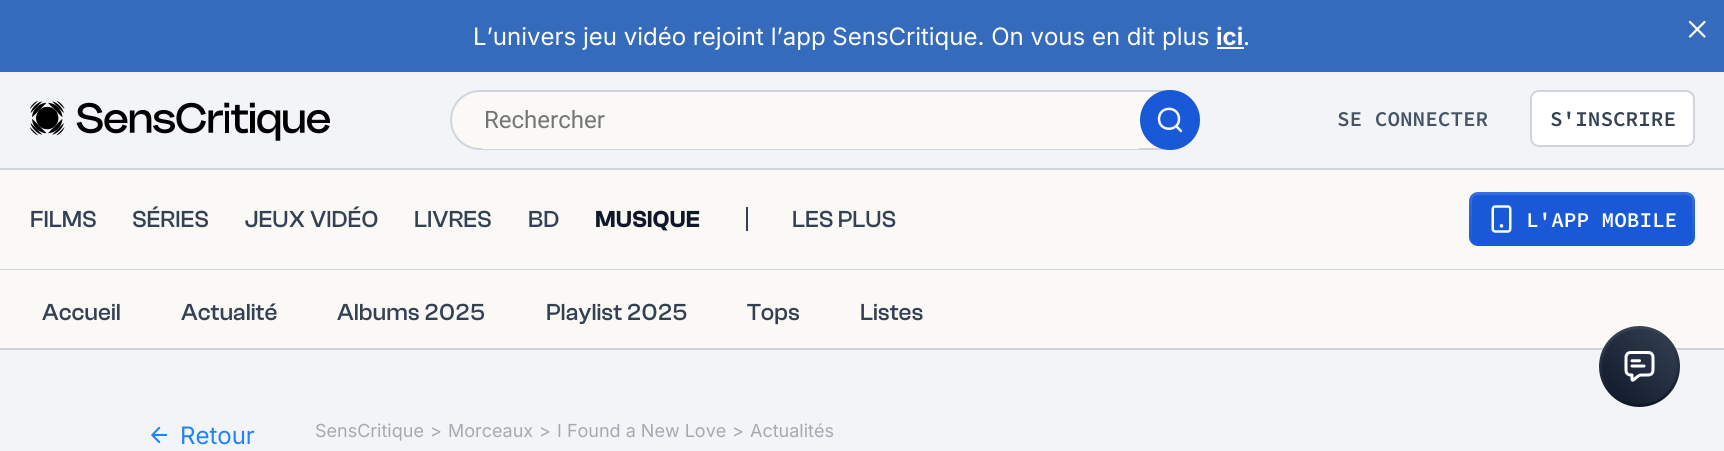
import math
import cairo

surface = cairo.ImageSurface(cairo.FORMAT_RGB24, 1724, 451)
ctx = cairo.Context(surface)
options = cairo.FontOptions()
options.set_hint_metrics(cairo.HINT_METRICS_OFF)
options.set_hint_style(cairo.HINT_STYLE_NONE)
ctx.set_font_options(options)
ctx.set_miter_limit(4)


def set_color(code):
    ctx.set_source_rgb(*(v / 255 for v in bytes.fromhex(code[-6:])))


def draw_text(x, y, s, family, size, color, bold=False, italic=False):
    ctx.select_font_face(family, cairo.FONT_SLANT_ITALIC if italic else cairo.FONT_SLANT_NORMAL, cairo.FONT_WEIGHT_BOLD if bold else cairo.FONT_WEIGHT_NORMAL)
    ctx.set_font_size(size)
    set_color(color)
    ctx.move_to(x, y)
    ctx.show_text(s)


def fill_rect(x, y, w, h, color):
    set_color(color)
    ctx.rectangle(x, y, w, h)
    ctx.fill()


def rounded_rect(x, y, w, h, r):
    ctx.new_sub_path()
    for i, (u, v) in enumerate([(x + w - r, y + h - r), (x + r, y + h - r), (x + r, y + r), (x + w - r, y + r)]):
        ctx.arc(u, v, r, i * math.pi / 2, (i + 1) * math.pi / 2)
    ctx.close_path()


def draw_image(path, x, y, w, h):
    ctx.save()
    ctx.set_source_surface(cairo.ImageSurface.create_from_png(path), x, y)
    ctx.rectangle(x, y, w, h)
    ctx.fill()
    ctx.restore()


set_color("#f2f4f7")
ctx.paint()
fill_rect(0, 0, 1724, 72, "#356bbd")
draw_text(473, 45, "L’univers jeu vidéo rejoint l’app SensCritique. On vous en dit plus", "Inter", 24, "#ffffff")
draw_text(1216, 45, "ici", "Inter", 24, "#ffffff", bold=True)
fill_rect(1217, 47, 27, 2, "#ffffff")
draw_text(1243, 45, ".", "Inter", 24, "#ffffff")
draw_image("assets/img1.png", 1688, 20, 18, 18)
fill_rect(0, 168, 1724, 2, "#d0d5dd")
draw_image("assets/img2.png", 30, 101, 300, 40)
set_color("#faf9f6")
rounded_rect(451, 91, 748, 58, 29)
ctx.fill_preserve()
set_color("#d0d5dd")
ctx.stroke()
fill_rect(482, 148, 657, 1, "#faf9f6")
draw_text(484, 128, "Rechercher", "Roboto", 24, "#757575")
set_color("#1959d7")
ctx.new_path()
ctx.arc(1170, 120, 30, 0, 2 * math.pi)
ctx.fill()
ctx.new_path()
ctx.move_to(1181, 131)
ctx.line_to(1176, 126)
ctx.move_to(1179, 119)
ctx.curve_to(1179, 132, 1159, 132, 1159, 119)
ctx.curve_to(1159, 105.5, 1179, 105.5, 1179, 119)
ctx.close_path()
set_color("#f5f5f5")
ctx.set_line_width(2.5)
ctx.set_line_cap(cairo.LINE_CAP_ROUND)
ctx.set_line_join(cairo.LINE_JOIN_ROUND)
ctx.stroke()
draw_text(1337, 126, "SE CONNECTER", "Source Code Pro SemiBold", 21, "#475467")
set_color("#ffffff")
rounded_rect(1531, 91, 163, 55, 8)
ctx.fill_preserve()
set_color("#d0d5dd")
ctx.set_line_width(2)
ctx.set_line_cap(cairo.LINE_CAP_BUTT)
ctx.set_line_join(cairo.LINE_JOIN_MITER)
ctx.stroke()
draw_text(1550, 126, "S'INSCRIRE", "Source Code Pro SemiBold", 21, "#344054")
fill_rect(0, 170, 1724, 99, "#faf9f6")
fill_rect(0, 269, 1724, 1, "#d0d5dd")
draw_text(30, 227, "FILMS", "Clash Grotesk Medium", 24, "#344054")
draw_text(132, 227, "SÉRIES", "Clash Grotesk Medium", 24, "#344054")
draw_text(245, 227, "JEUX VIDÉO", "Clash Grotesk Medium", 24, "#344054")
draw_text(414, 227, "LIVRES", "Clash Grotesk Medium", 24, "#344054")
draw_text(528, 227, "BD", "Clash Grotesk Medium", 24, "#344054")
draw_text(595, 227, "MUSIQUE", "Clash Grotesk SemiBold", 24, "#101828")
fill_rect(746, 207, 2, 24, "#344054")
draw_text(792, 227, "LES PLUS", "Clash Grotesk Medium", 24, "#344054")
gradient = cairo.LinearGradient(1582, 192, 1582, 246)
gradient.add_color_stop_rgba(0, 0.208, 0.427, 0.863, 1)
gradient.add_color_stop_rgba(1, 0.102, 0.353, 0.843, 1)
ctx.set_source(gradient)
rounded_rect(1469, 192, 226, 54, 9)
ctx.fill()
set_color("#1959d7")
rounded_rect(1472, 195, 220, 48, 6)
ctx.fill()
draw_image("assets/img3.png", 1491, 205, 21, 28)
draw_text(1526, 227, "L'APP MOBILE", "Source Code Pro SemiBold", 21, "#ffffff")
fill_rect(0, 270, 1724, 78, "#faf9f6")
fill_rect(0, 348, 1724, 2, "#d0d5dd")
draw_text(42, 320, "Accueil", "Clash Grotesk Medium", 24, "#344054")
draw_text(181, 320, "Actualité", "Clash Grotesk Medium", 24, "#344054")
draw_text(337, 320, "Albums 2025", "Clash Grotesk Medium", 24, "#344054")
draw_text(546, 320, "Playlist 2025", "Clash Grotesk Medium", 24, "#344054")
draw_text(747, 320, "Tops", "Clash Grotesk Medium", 24, "#344054")
draw_text(860, 320, "Listes", "Clash Grotesk Medium", 24, "#344054")
gradient = cairo.LinearGradient(1640, 326, 1640, 407)
gradient.add_color_stop_rgba(0, 0.227, 0.263, 0.325, 1)
gradient.add_color_stop_rgba(1, 0.063, 0.094, 0.157, 1)
ctx.set_source(gradient)
ctx.new_path()
ctx.arc(1639.5, 366.5, 40.5, 0, 2 * math.pi)
ctx.fill()
gradient = cairo.LinearGradient(1602, 404, 1677, 329)
gradient.add_color_stop_rgba(0, 0.063, 0.094, 0.157, 1)
gradient.add_color_stop_rgba(1, 0.204, 0.251, 0.329, 1)
ctx.set_source(gradient)
ctx.arc(1639.5, 366.5, 37.5, 0, 2 * math.pi)
ctx.fill()
draw_image("assets/img4.png", 1624, 351, 31, 31)
draw_image("assets/img5.png", 151, 426, 17, 17)
draw_text(180, 444, "Retour", "Inter", 24, "#2083f6")
draw_text(315, 437, "SensCritique", "Inter", 18, "#a6aaaf")
draw_text(430, 437, ">", "Inter", 18, "#a6aaaf")
draw_text(448, 437, "Morceaux", "Inter", 18, "#a6aaaf")
draw_text(539, 437, ">", "Inter", 18, "#a6aaaf")
draw_text(557, 437, "I Found a New Love", "Inter", 18, "#a6aaaf")
draw_text(732, 437, ">", "Inter", 18, "#a6aaaf")
draw_text(750, 437, "Actualités", "Inter", 18, "#a6aaaf")
surface.write_to_png("output.png")
